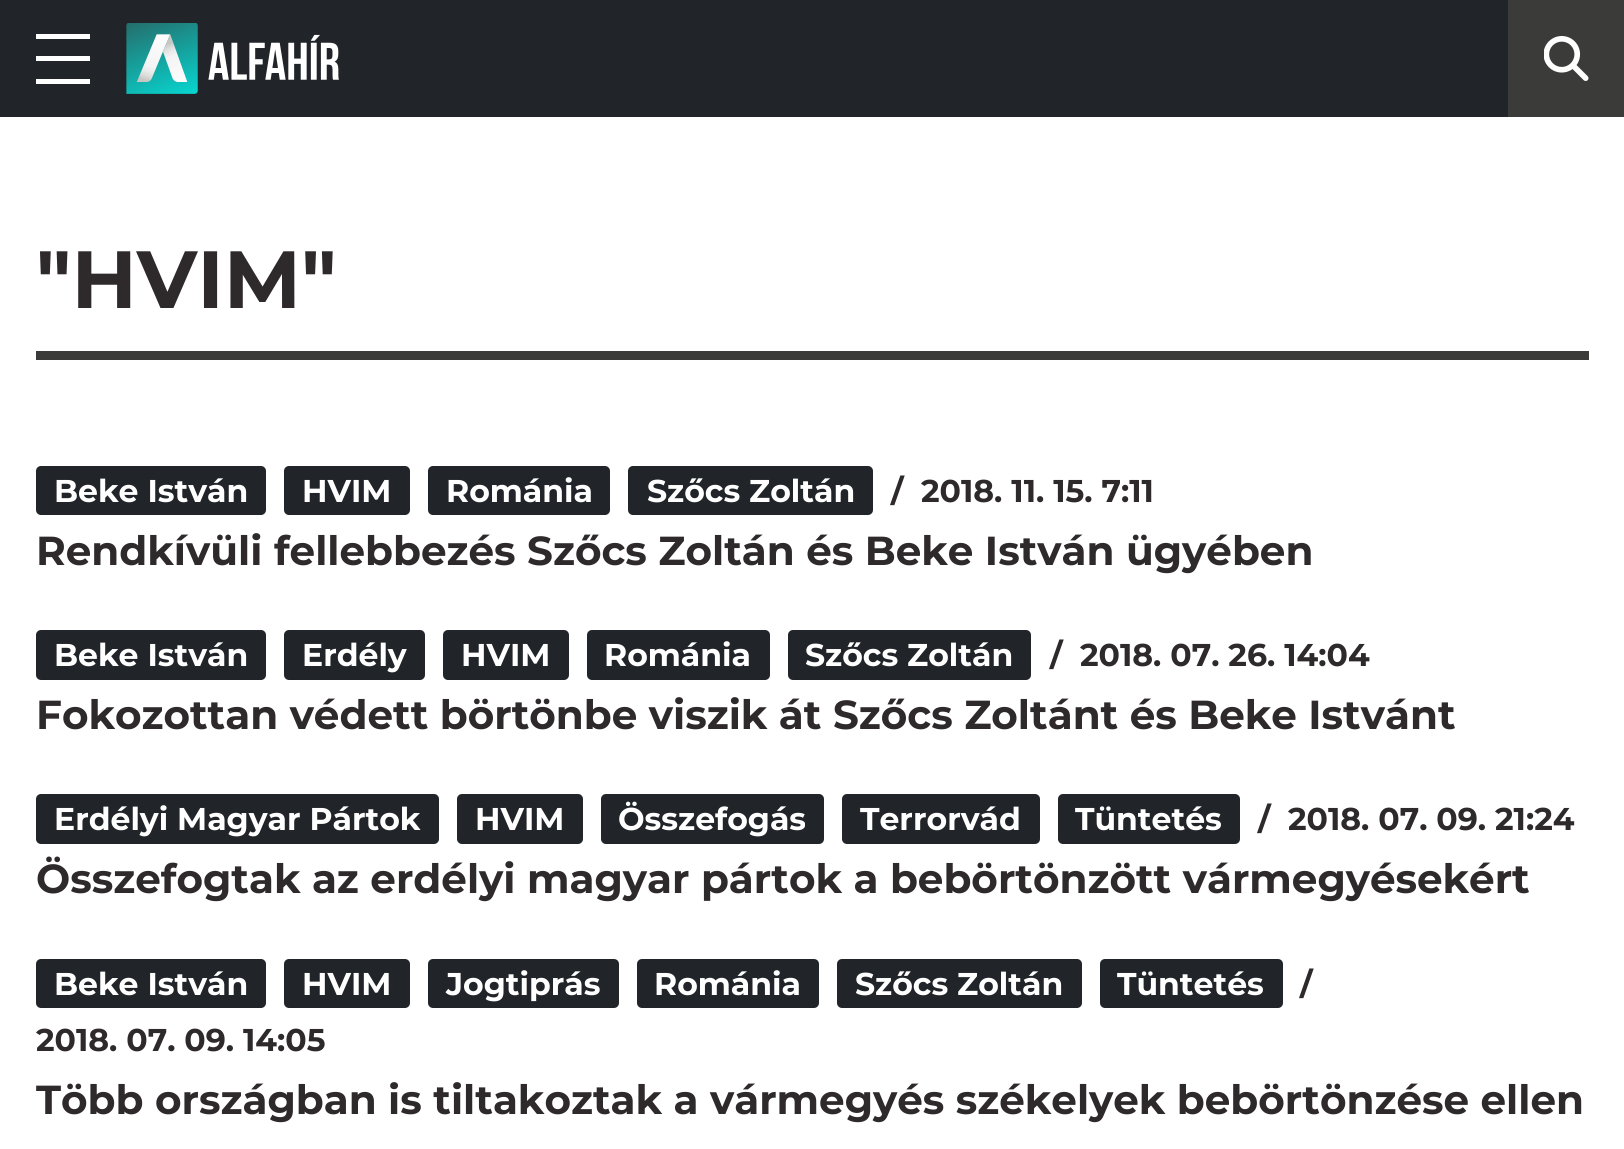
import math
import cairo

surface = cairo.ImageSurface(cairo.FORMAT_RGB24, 1624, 1149)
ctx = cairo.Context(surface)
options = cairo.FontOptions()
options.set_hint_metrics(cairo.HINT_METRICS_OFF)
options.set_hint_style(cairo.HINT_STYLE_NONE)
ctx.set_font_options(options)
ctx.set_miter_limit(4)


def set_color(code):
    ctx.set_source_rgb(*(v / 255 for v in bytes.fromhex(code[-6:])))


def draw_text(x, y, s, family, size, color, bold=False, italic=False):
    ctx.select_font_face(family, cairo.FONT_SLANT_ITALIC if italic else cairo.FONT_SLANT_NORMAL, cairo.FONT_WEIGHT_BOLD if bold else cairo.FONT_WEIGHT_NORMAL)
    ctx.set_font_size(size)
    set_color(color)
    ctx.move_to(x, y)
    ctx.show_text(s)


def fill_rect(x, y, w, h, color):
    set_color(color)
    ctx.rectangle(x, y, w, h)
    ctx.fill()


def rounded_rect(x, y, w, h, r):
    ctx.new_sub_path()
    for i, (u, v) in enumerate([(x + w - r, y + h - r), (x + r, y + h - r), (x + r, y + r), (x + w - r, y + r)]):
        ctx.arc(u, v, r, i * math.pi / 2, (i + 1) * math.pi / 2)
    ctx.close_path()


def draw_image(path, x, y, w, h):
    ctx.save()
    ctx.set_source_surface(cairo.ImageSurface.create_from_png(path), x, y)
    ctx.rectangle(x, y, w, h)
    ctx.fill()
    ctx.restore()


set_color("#ffffff")
ctx.paint()
fill_rect(0, 0, 1508, 117, "#212529")
fill_rect(36, 34, 54, 5, "#ffffff")
fill_rect(36, 56, 54, 5, "#ffffff")
fill_rect(36, 79, 54, 5, "#ffffff")
draw_image("assets/img1.png", 126, 23, 213, 71)
fill_rect(1508, 0, 116, 117, "#3b3b3a")
draw_image("assets/img2.png", 1544, 36, 45, 45)
fill_rect(36, 351, 1553, 9, "#3b3b3a")
draw_text(36, 308, "\"HVIM\"", "Montserrat", 81, "#2e292a", bold=True)
set_color("#212529")
rounded_rect(36, 466, 230, 49, 5)
ctx.fill()
draw_text(54, 502, "Beke István", "Montserrat", 31.5, "#ffffff", bold=True)
set_color("#212529")
rounded_rect(284, 466, 126, 49, 5)
ctx.fill()
draw_text(302, 502, "HVIM", "Montserrat", 31.5, "#ffffff", bold=True)
set_color("#212529")
rounded_rect(428, 466, 182, 49, 5)
ctx.fill()
draw_text(446, 502, "Románia", "Montserrat", 31.5, "#ffffff", bold=True)
set_color("#212529")
rounded_rect(628, 466, 245, 49, 5)
ctx.fill()
draw_text(647, 502, "Szőcs Zoltán", "Montserrat", 31.5, "#ffffff", bold=True)
draw_text(891, 502, "/", "Montserrat", 31.5, "#2e292a", bold=True)
draw_text(921, 502, "2018. 11. 15. 7:11", "Montserrat", 31.5, "#2e292a", bold=True)
draw_text(36, 565, "Rendkívüli fellebbezés Szőcs Zoltán és Beke István ügyében", "Montserrat", 40.5, "#2e292a", bold=True)
set_color("#212529")
rounded_rect(36, 630, 230, 50, 5)
ctx.fill()
draw_text(54, 666, "Beke István", "Montserrat", 31.5, "#ffffff", bold=True)
set_color("#212529")
rounded_rect(284, 630, 141, 50, 5)
ctx.fill()
draw_text(302, 666, "Erdély", "Montserrat", 31.5, "#ffffff", bold=True)
set_color("#212529")
rounded_rect(443, 630, 126, 50, 5)
ctx.fill()
draw_text(461, 666, "HVIM", "Montserrat", 31.5, "#ffffff", bold=True)
set_color("#212529")
rounded_rect(587, 630, 183, 50, 5)
ctx.fill()
draw_text(604, 666, "Románia", "Montserrat", 31.5, "#ffffff", bold=True)
set_color("#212529")
rounded_rect(788, 630, 243, 50, 5)
ctx.fill()
draw_text(805, 666, "Szőcs Zoltán", "Montserrat", 31.5, "#ffffff", bold=True)
draw_text(1050, 666, "/", "Montserrat", 31.5, "#2e292a", bold=True)
draw_text(1080, 666, "2018. 07. 26. 14:04", "Montserrat", 31.5, "#2e292a", bold=True)
draw_text(36, 729, "Fokozottan védett börtönbe viszik át Szőcs Zoltánt és Beke Istvánt", "Montserrat", 40.5, "#2e292a", bold=True)
set_color("#212529")
rounded_rect(36, 794, 403, 50, 5)
ctx.fill()
draw_text(54, 830, "Erdélyi Magyar Pártok", "Montserrat", 31.5, "#ffffff", bold=True)
set_color("#212529")
rounded_rect(457, 794, 126, 50, 5)
ctx.fill()
draw_text(475, 830, "HVIM", "Montserrat", 31.5, "#ffffff", bold=True)
set_color("#212529")
rounded_rect(601, 794, 223, 50, 5)
ctx.fill()
draw_text(618, 830, "Összefogás", "Montserrat", 31.5, "#ffffff", bold=True)
set_color("#212529")
rounded_rect(842, 794, 198, 50, 5)
ctx.fill()
draw_text(860, 830, "Terrorvád", "Montserrat", 31.5, "#ffffff", bold=True)
set_color("#212529")
rounded_rect(1058, 794, 182, 50, 5)
ctx.fill()
draw_text(1075, 830, "Tüntetés", "Montserrat", 31.5, "#ffffff", bold=True)
draw_text(1258, 830, "/", "Montserrat", 31.5, "#2e292a", bold=True)
draw_text(1288, 830, "2018. 07. 09. 21:24", "Montserrat", 31.5, "#2e292a", bold=True)
draw_text(36, 893, "Összefogtak az erdélyi magyar pártok a bebörtönzött vármegyésekért", "Montserrat", 40.5, "#2e292a", bold=True)
set_color("#212529")
rounded_rect(36, 959, 230, 49, 5)
ctx.fill()
draw_text(54, 995, "Beke István", "Montserrat", 31.5, "#ffffff", bold=True)
set_color("#212529")
rounded_rect(284, 959, 126, 49, 5)
ctx.fill()
draw_text(302, 995, "HVIM", "Montserrat", 31.5, "#ffffff", bold=True)
set_color("#212529")
rounded_rect(428, 959, 191, 49, 5)
ctx.fill()
draw_text(446, 995, "Jogtiprás", "Montserrat", 31.5, "#ffffff", bold=True)
set_color("#212529")
rounded_rect(637, 959, 182, 49, 5)
ctx.fill()
draw_text(654, 995, "Románia", "Montserrat", 31.5, "#ffffff", bold=True)
set_color("#212529")
rounded_rect(837, 959, 245, 49, 5)
ctx.fill()
draw_text(855, 995, "Szőcs Zoltán", "Montserrat", 31.5, "#ffffff", bold=True)
set_color("#212529")
rounded_rect(1100, 959, 183, 49, 5)
ctx.fill()
draw_text(1117, 995, "Tüntetés", "Montserrat", 31.5, "#ffffff", bold=True)
draw_text(1300, 995, "/", "Montserrat", 31.5, "#2e292a", bold=True)
draw_text(36, 1051, "2018. 07. 09. 14:05", "Montserrat", 31.5, "#2e292a", bold=True)
draw_text(36, 1114, "Több országban is tiltakoztak a vármegyés székelyek bebörtönzése ellen", "Montserrat", 40.5, "#2e292a", bold=True)
surface.write_to_png("output.png")
